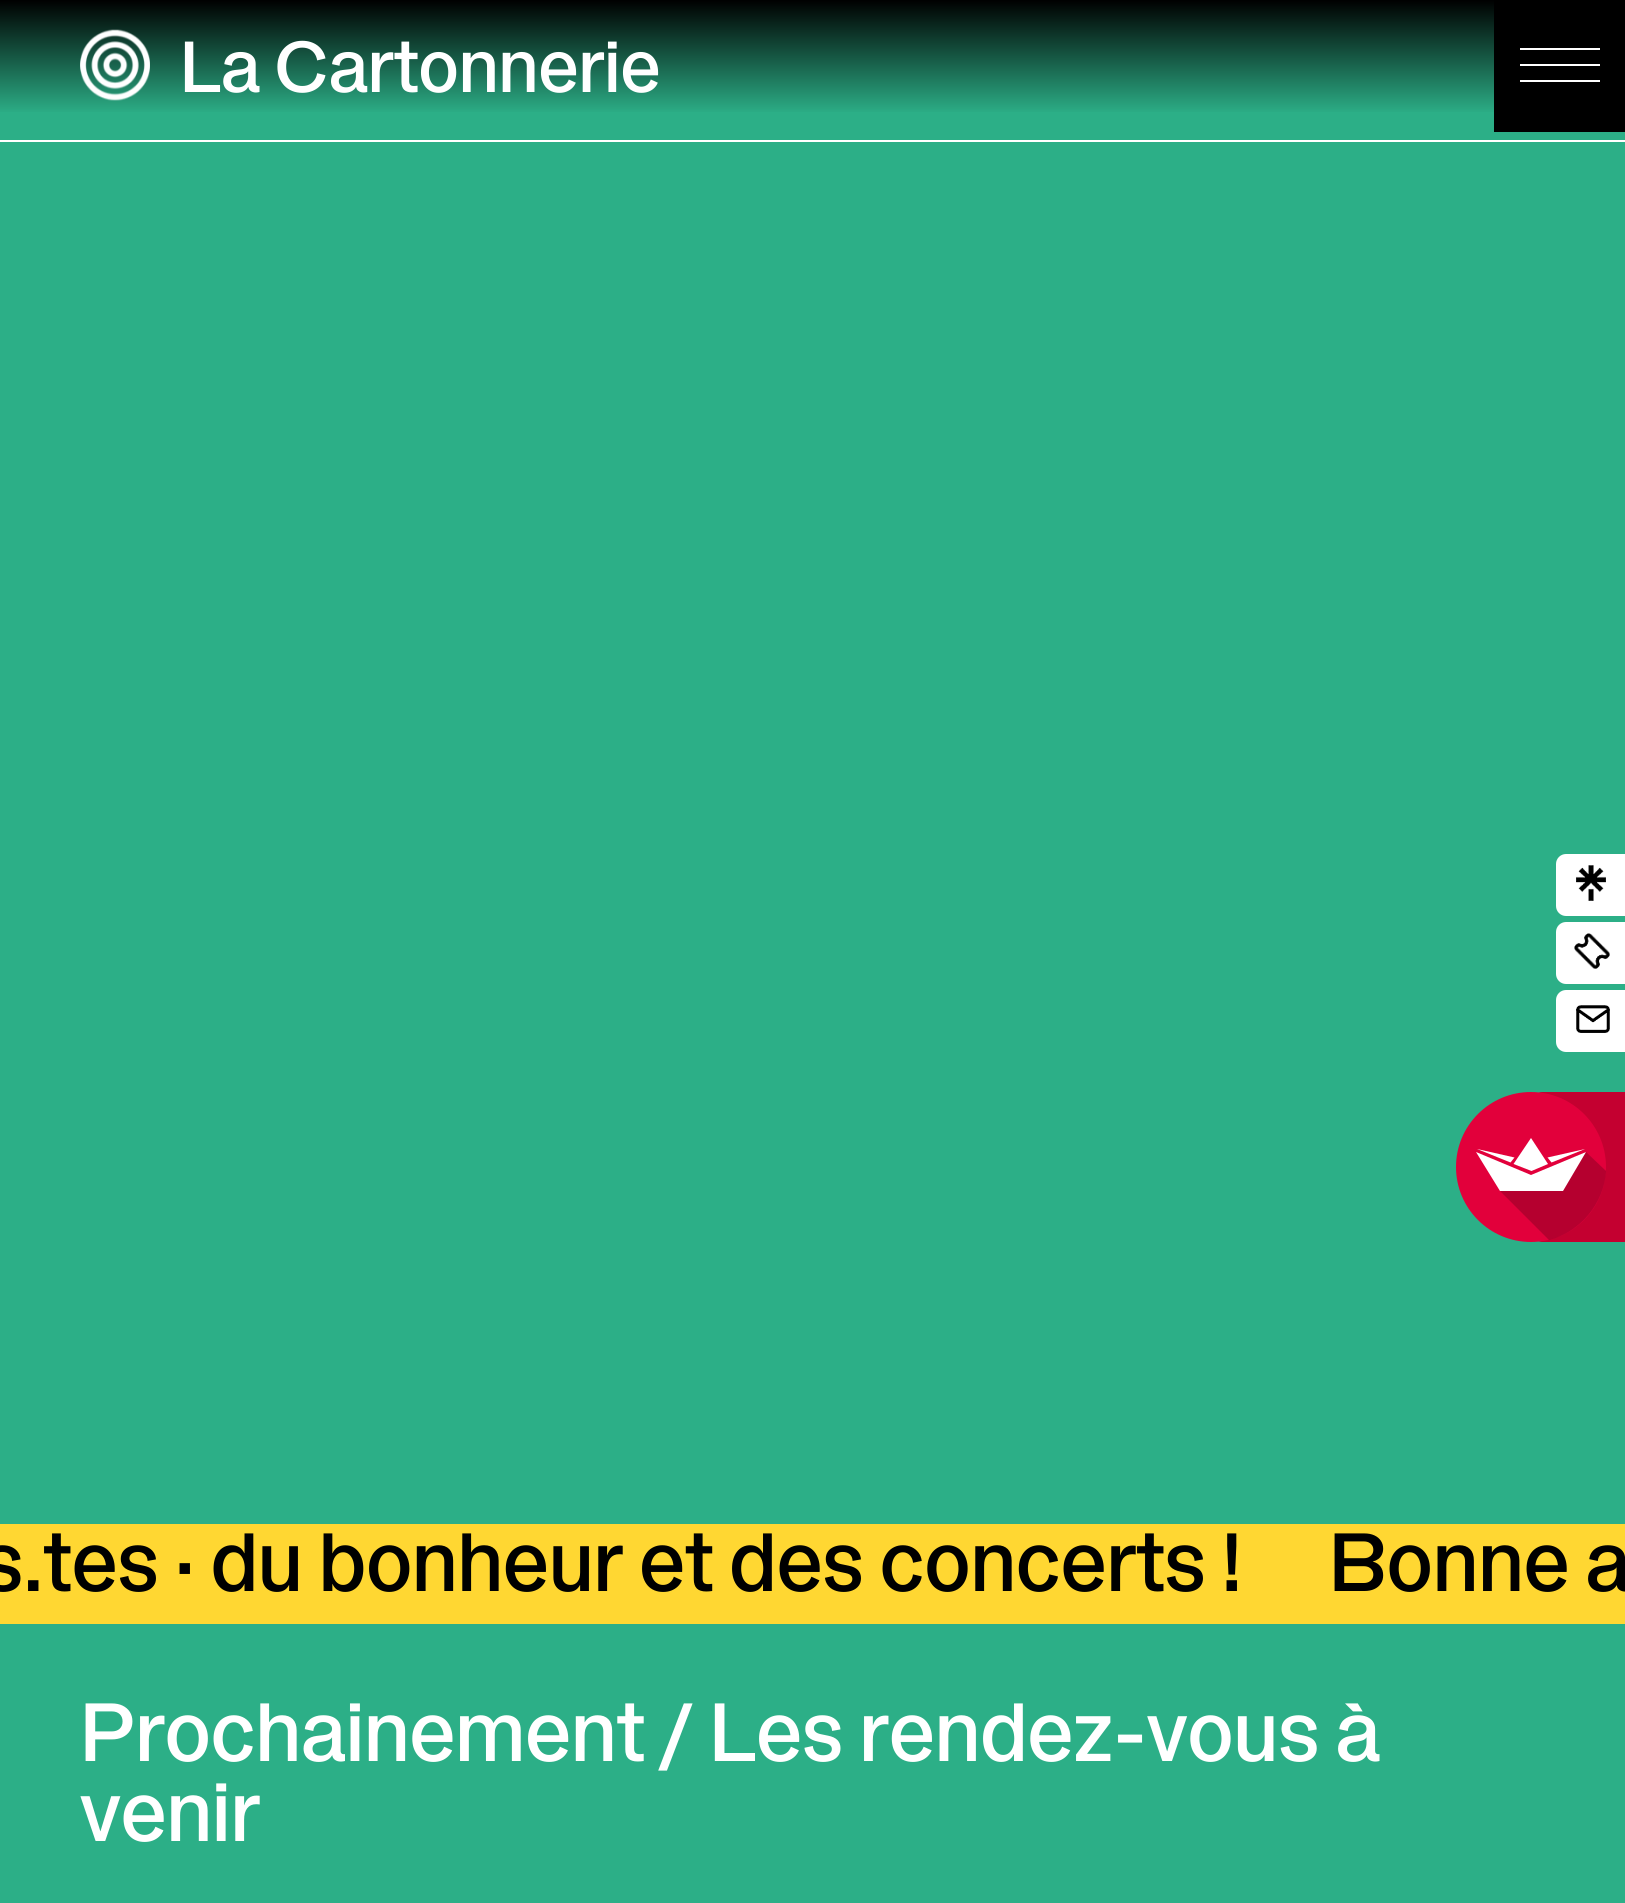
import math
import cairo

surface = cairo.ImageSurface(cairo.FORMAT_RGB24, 1625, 1903)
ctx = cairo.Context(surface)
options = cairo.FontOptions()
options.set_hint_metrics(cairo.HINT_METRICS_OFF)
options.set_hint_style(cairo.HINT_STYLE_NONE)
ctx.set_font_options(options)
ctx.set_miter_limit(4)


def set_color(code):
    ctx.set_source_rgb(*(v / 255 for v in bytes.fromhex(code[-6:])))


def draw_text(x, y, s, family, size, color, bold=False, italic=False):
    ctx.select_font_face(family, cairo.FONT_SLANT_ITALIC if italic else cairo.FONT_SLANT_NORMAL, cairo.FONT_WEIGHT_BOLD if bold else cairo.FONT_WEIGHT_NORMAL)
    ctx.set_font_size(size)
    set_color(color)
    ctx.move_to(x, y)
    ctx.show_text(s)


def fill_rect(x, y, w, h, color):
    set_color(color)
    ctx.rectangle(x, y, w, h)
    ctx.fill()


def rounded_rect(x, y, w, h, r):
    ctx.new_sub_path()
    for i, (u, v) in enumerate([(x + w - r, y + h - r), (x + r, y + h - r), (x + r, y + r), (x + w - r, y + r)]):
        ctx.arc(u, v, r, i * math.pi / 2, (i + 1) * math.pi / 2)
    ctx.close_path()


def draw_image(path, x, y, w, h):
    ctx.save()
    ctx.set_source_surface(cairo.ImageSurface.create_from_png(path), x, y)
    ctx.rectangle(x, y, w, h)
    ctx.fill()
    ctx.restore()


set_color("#2caf87")
ctx.paint()
fill_rect(1494, 0, 131, 132, "#000000")
fill_rect(1520, 64, 80, 2, "#ffffff")
fill_rect(1520, 48, 80, 2, "#ffffff")
fill_rect(1520, 80, 80, 2, "#ffffff")
fill_rect(0, 140, 1625, 2, "#ffffff")
gradient = cairo.LinearGradient(813, 0, 813, 114)
gradient.add_color_stop_rgba(0, 0, 0, 0, 1)
gradient.add_color_stop_rgba(1, 0.173, 0.686, 0.529, 1)
ctx.set_source(gradient)
ctx.rectangle(0, 0, 1494, 112)
ctx.fill()
draw_image("assets/img1.png", 80, 29, 70, 72)
draw_text(180, 92, "La Cartonnerie", "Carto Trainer", 70, "#ffffff")
ctx.new_path()
ctx.move_to(1566, 854)
ctx.line_to(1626, 854)
ctx.line_to(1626, 916)
ctx.line_to(1566, 916)
ctx.curve_to(1560.5, 916, 1556, 911.5, 1556, 906)
ctx.line_to(1556, 864)
ctx.curve_to(1556, 858.5, 1560.5, 854, 1566, 854)
ctx.close_path()
ctx.fill()
draw_image("assets/img2.png", 1576, 865, 30, 36)
ctx.new_path()
ctx.move_to(1566, 922)
ctx.line_to(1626, 922)
ctx.line_to(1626, 984)
ctx.line_to(1566, 984)
ctx.curve_to(1560.5, 984, 1556, 979.5, 1556, 974)
ctx.line_to(1556, 932)
ctx.curve_to(1556, 926.5, 1560.5, 922, 1566, 922)
ctx.close_path()
ctx.fill()
draw_image("assets/img3.png", 1574, 933, 36, 36)
ctx.new_path()
ctx.move_to(1566, 990)
ctx.line_to(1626, 990)
ctx.line_to(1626, 1052)
ctx.line_to(1566, 1052)
ctx.curve_to(1560.5, 1052, 1556, 1047.5, 1556, 1042)
ctx.line_to(1556, 1000)
ctx.curve_to(1556, 994.5, 1560.5, 990, 1566, 990)
ctx.close_path()
ctx.fill()
draw_image("assets/img4.png", 1576, 1005, 34, 28)
fill_rect(0, 1524, 1625, 100, "#ffd732")
draw_text(-18, 1591, "s.tes · du bonheur et des concerts !", "Carto Trainer", 80, "#000000")
draw_text(1329, 1591, "Bonne a", "Carto Trainer", 80, "#000000")
draw_text(80, 1761, "Prochainement / Les rendez-vous à", "Carto Trainer", 80, "#ffffff")
draw_text(80, 1841, "venir", "Carto Trainer", 80, "#ffffff")
set_color("#c40030")
rounded_rect(1536, 1092, 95, 150, 6)
ctx.fill()
set_color("#e2003b")
ctx.arc(1531, 1167, 75, 0, 2 * math.pi)
ctx.fill()
ctx.set_source_rgba(0, 0, 0, 0.2)
ctx.new_path()
ctx.move_to(1500, 1191)
ctx.line_to(1549, 1240)
ctx.curve_to(1580, 1232, 1604, 1204, 1606, 1171)
ctx.line_to(1586, 1152)
ctx.close_path()
ctx.fill()
set_color("#ffffff")
ctx.new_path()
ctx.move_to(1585, 1149)
ctx.line_to(1547.5, 1157.5)
ctx.line_to(1551.5, 1162.5)
ctx.close_path()
ctx.fill()
ctx.new_path()
ctx.move_to(1477, 1149)
ctx.line_to(1514.5, 1157.5)
ctx.line_to(1510.5, 1162.5)
ctx.close_path()
ctx.fill()
ctx.new_path()
ctx.move_to(1531.5, 1171)
ctx.line_to(1548, 1164)
ctx.line_to(1531, 1138)
ctx.line_to(1513.5, 1164)
ctx.close_path()
ctx.fill()
ctx.new_path()
ctx.move_to(1531, 1175)
ctx.line_to(1476, 1152)
ctx.line_to(1500, 1191)
ctx.line_to(1563, 1191)
ctx.line_to(1586, 1152)
ctx.close_path()
ctx.fill()
surface.write_to_png("output.png")
